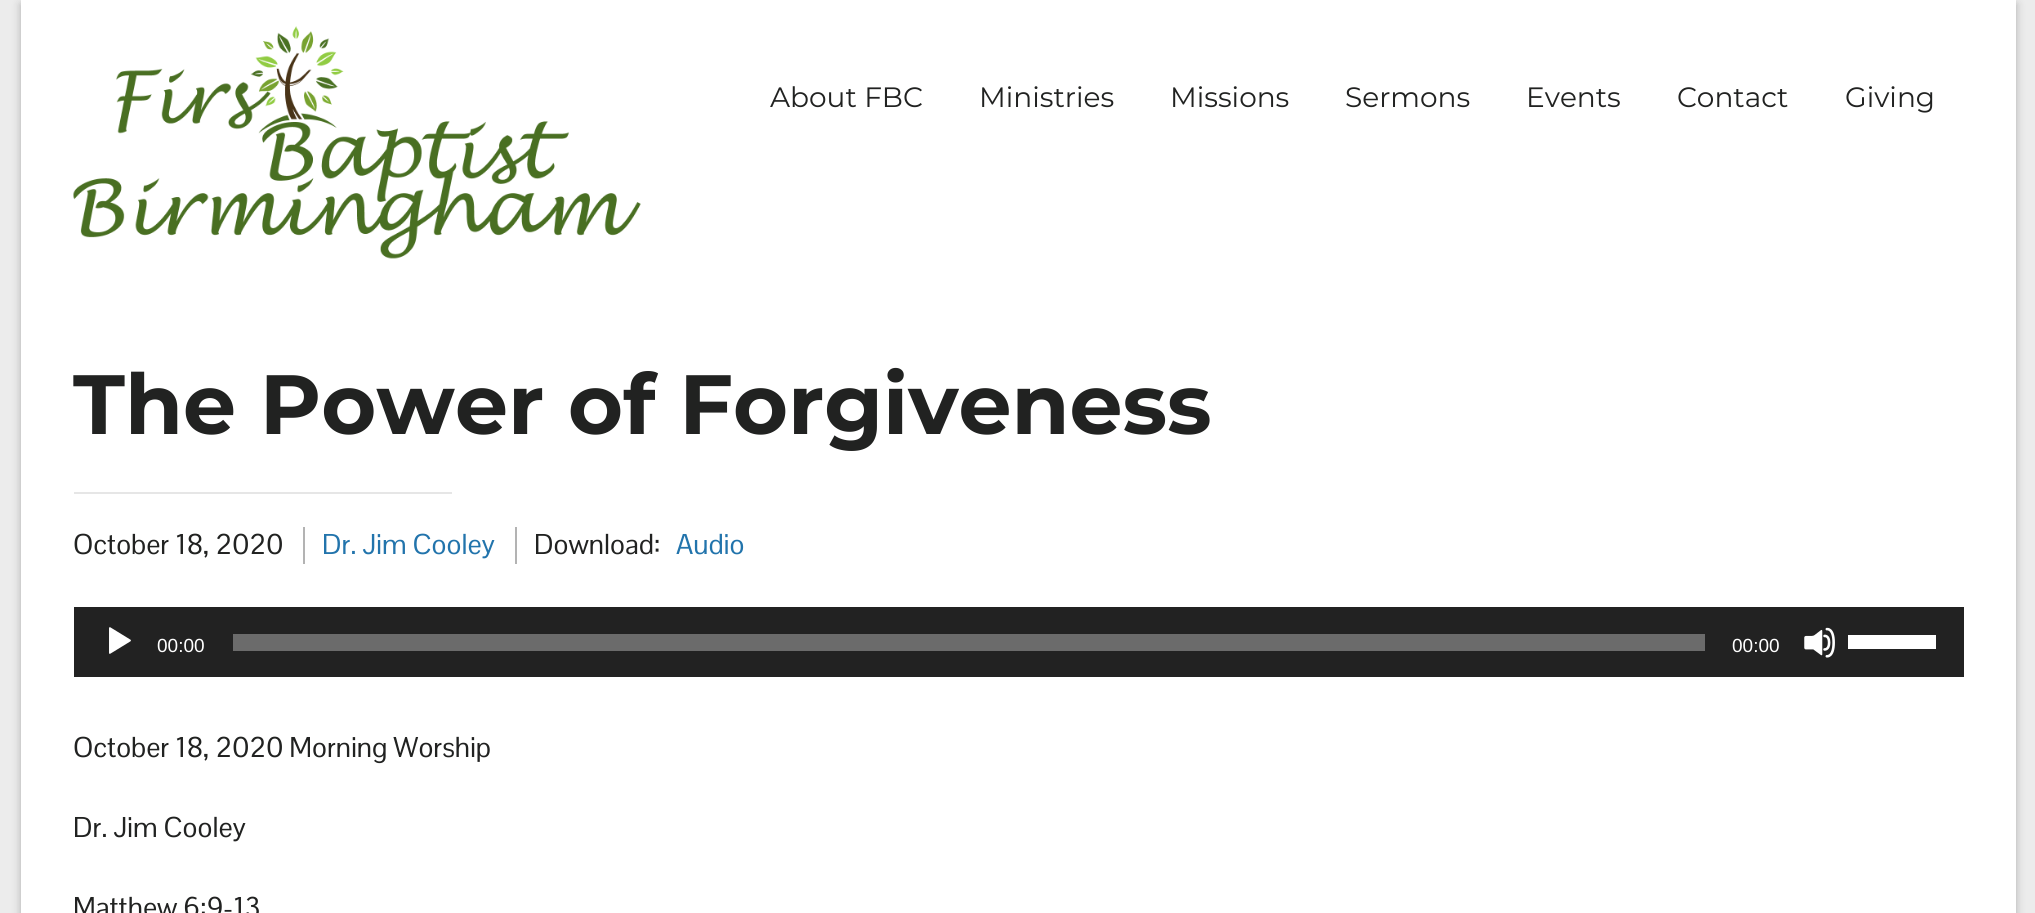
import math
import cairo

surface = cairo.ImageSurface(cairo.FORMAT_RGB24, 2035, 913)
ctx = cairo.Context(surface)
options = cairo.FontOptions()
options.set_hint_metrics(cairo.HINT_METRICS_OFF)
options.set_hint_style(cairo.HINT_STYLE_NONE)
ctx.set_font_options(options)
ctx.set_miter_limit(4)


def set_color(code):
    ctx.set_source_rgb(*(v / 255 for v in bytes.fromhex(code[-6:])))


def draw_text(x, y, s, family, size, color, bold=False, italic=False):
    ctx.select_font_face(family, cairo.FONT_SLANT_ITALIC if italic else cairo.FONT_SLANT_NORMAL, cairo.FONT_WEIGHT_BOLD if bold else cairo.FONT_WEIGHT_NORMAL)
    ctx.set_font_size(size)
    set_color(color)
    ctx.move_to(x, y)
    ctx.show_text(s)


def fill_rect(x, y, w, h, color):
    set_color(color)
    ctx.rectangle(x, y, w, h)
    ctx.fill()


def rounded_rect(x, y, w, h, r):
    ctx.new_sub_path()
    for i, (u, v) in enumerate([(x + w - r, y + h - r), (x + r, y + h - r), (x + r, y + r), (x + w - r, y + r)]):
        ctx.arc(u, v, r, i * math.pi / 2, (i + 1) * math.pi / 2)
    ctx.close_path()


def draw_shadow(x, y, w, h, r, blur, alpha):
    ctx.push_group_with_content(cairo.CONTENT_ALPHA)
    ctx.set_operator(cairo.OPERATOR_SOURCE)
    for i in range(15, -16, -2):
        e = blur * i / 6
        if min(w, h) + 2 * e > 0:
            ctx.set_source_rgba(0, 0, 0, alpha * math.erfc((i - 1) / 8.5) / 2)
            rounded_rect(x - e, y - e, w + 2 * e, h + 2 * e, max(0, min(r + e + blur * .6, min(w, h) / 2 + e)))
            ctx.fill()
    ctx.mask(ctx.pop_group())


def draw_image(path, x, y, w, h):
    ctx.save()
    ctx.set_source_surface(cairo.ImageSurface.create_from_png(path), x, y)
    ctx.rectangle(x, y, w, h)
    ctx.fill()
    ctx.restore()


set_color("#ececec")
ctx.paint()
set_color("#000000")
draw_shadow(21, 4, 1995, 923, 0, 4.5, 0.26)
fill_rect(21, 0, 1995, 913, "#ffffff")
draw_image("assets/img1.png", 73, 26, 568, 233)
draw_text(770, 107, "About FBC", "Montserrat", 28, "#212221")
draw_text(979, 107, "Ministries", "Montserrat", 28, "#212221")
draw_text(1170, 107, "Missions", "Montserrat", 28, "#212221")
draw_text(1345, 107, "Sermons", "Montserrat", 28, "#212221")
draw_text(1526, 107, "Events", "Montserrat", 28, "#212221")
draw_text(1677, 107, "Contact", "Montserrat", 28, "#212221")
draw_text(1845, 107, "Giving", "Montserrat", 28, "#212221")
draw_text(73, 434, "The Power of Forgiveness", "Montserrat", 84, "#212221", bold=True)
fill_rect(74, 492, 378, 2, "#e6e6e6")
draw_text(73, 554, "October 18, 2020", "Pontano Sans", 28, "#212221")
draw_text(322, 554, "Dr. Jim Cooley", "Pontano Sans", 28, "#2274ac")
fill_rect(303, 527, 2, 37, "#b3b3b3")
draw_text(534, 554, "Download:", "Pontano Sans", 28, "#212221")
fill_rect(515, 527, 2, 37, "#b3b3b3")
draw_text(676, 554, "Audio", "Pontano Sans", 28, "#2274ac")
fill_rect(74, 607, 1890, 70, "#222222")
draw_image("assets/img2.png", 109, 627, 22, 27)
draw_text(157, 652, "00:00", "Liberation Sans", 19, "#ffffff")
fill_rect(233, 634, 1472, 17, "#6b6b6b")
draw_text(1732, 652, "00:00", "Liberation Sans", 19, "#ffffff")
draw_image("assets/img3.png", 1804, 627, 31, 31)
fill_rect(1848, 635, 88, 14, "#ffffff")
draw_text(73, 757, "October 18, 2020 Morning Worship", "Pontano Sans", 28, "#212221")
draw_text(73, 837, "Dr. Jim Cooley", "Pontano Sans", 28, "#212221")
draw_text(73, 917, "Matthew 6:9-13", "Pontano Sans", 28, "#212221")
surface.write_to_png("output.png")
